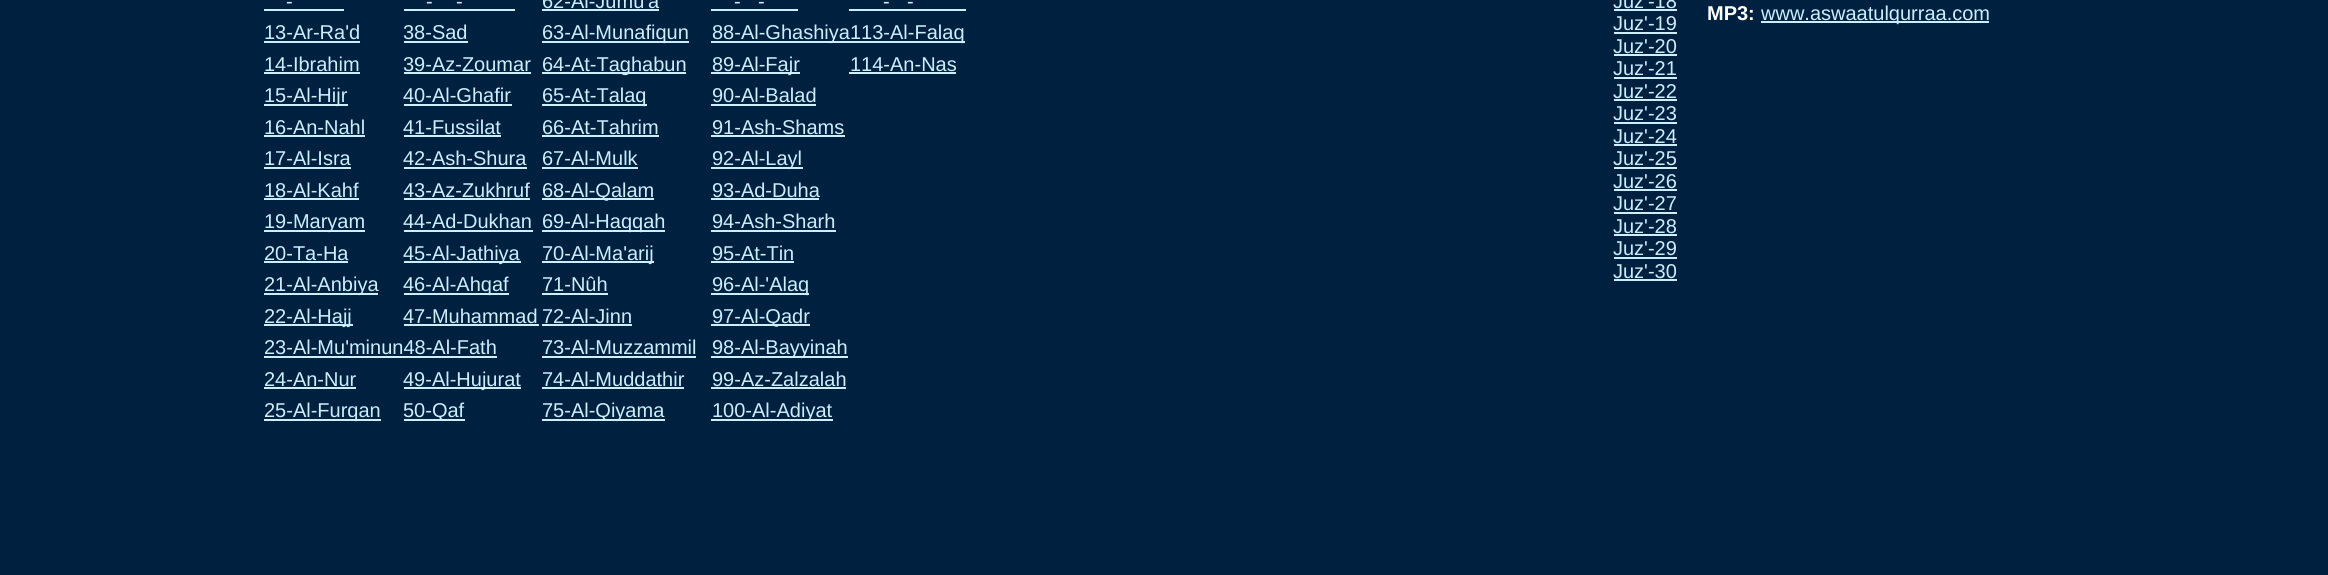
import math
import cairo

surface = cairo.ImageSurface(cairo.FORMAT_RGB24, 2328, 575)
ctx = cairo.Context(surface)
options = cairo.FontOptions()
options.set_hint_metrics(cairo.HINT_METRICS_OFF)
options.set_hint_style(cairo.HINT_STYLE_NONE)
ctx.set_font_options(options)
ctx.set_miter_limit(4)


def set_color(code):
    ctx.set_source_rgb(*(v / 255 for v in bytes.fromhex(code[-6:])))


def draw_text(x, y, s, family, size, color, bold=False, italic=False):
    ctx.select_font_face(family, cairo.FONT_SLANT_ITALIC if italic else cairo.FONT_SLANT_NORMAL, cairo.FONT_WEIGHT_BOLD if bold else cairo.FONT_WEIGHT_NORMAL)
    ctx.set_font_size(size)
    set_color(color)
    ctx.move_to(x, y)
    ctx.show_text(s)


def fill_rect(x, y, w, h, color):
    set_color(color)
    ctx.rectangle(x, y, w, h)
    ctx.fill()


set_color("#002040")
ctx.paint()
draw_text(286, 8, "-", "Liberation Sans", 20, "#cceeff")
fill_rect(264, 9, 80, 2, "#cceeff")
draw_text(264, 39, "13-Ar-Ra'd", "Liberation Sans", 20, "#cceeff")
fill_rect(264, 41, 96, 2, "#cceeff")
draw_text(264, 71, "14-Ibrahim", "Liberation Sans", 20, "#cceeff")
fill_rect(264, 72, 96, 2, "#cceeff")
fill_rect(264, 104, 84, 2, "#cceeff")
draw_text(264, 102, "15-Al-Hijr", "Liberation Sans", 20, "#cceeff")
draw_text(264, 134, "16-An-Nahl", "Liberation Sans", 20, "#cceeff")
fill_rect(264, 135, 101, 2, "#cceeff")
draw_text(264, 165, "17-Al-Isra", "Liberation Sans", 20, "#cceeff")
fill_rect(264, 167, 87, 2, "#cceeff")
draw_text(264, 197, "18-Al-Kahf", "Liberation Sans", 20, "#cceeff")
fill_rect(264, 198, 95, 2, "#cceeff")
fill_rect(264, 230, 101, 2, "#cceeff")
draw_text(264, 228, "19-Maryam", "Liberation Sans", 20, "#cceeff")
draw_text(264, 260, "20-Ta-Ha", "Liberation Sans", 20, "#cceeff")
fill_rect(264, 261, 84, 2, "#cceeff")
fill_rect(264, 293, 114, 2, "#cceeff")
draw_text(264, 291, "21-Al-Anbiya", "Liberation Sans", 20, "#cceeff")
fill_rect(264, 324, 89, 2, "#cceeff")
draw_text(264, 323, "22-Al-Hajj", "Liberation Sans", 20, "#cceeff")
draw_text(264, 354, "23-Al-Mu'minun48-Al-Fath", "Liberation Sans", 20, "#cceeff")
fill_rect(264, 356, 233, 2, "#cceeff")
draw_text(264, 386, "24-An-Nur", "Liberation Sans", 20, "#cceeff")
fill_rect(264, 387, 92, 2, "#cceeff")
fill_rect(264, 419, 117, 2, "#cceeff")
draw_text(264, 417, "25-Al-Furqan", "Liberation Sans", 20, "#cceeff")
draw_text(542, 8, "62-Al-Jumu'a", "Liberation Sans", 20, "#cceeff")
fill_rect(542, 9, 117, 2, "#cceeff")
fill_rect(542, 41, 147, 2, "#cceeff")
draw_text(542, 39, "63-Al-Munafiqun", "Liberation Sans", 20, "#cceeff")
fill_rect(542, 72, 144, 2, "#cceeff")
draw_text(542, 71, "64-At-Taghabun", "Liberation Sans", 20, "#cceeff")
fill_rect(542, 104, 105, 2, "#cceeff")
draw_text(542, 102, "65-At-Talaq", "Liberation Sans", 20, "#cceeff")
draw_text(542, 134, "66-At-Tahrim", "Liberation Sans", 20, "#cceeff")
fill_rect(542, 135, 117, 2, "#cceeff")
draw_text(542, 165, "67-Al-Mulk", "Liberation Sans", 20, "#cceeff")
fill_rect(542, 167, 96, 2, "#cceeff")
fill_rect(542, 198, 112, 2, "#cceeff")
draw_text(542, 197, "68-Al-Qalam", "Liberation Sans", 20, "#cceeff")
fill_rect(542, 230, 123, 2, "#cceeff")
draw_text(542, 228, "69-Al-Haqqah", "Liberation Sans", 20, "#cceeff")
fill_rect(542, 261, 112, 2, "#cceeff")
draw_text(542, 260, "70-Al-Ma'arij", "Liberation Sans", 20, "#cceeff")
draw_text(542, 291, "71-Nûh", "Liberation Sans", 20, "#cceeff")
fill_rect(542, 293, 66, 2, "#cceeff")
draw_text(542, 323, "72-Al-Jinn", "Liberation Sans", 20, "#cceeff")
fill_rect(542, 324, 90, 2, "#cceeff")
draw_text(542, 354, "73-Al-Muzzammil", "Liberation Sans", 20, "#cceeff")
fill_rect(542, 356, 154, 2, "#cceeff")
draw_text(542, 386, "74-Al-Muddathir", "Liberation Sans", 20, "#cceeff")
fill_rect(542, 387, 142, 2, "#cceeff")
fill_rect(542, 419, 123, 2, "#cceeff")
draw_text(542, 417, "75-Al-Qiyama", "Liberation Sans", 20, "#cceeff")
draw_text(1613, 8, "Juz'-18", "Liberation Sans", 20, "#cceeff")
fill_rect(1614, 9, 63, 2, "#cceeff")
draw_text(1613, 30, "Juz'-19", "Liberation Sans", 20, "#cceeff")
fill_rect(1614, 32, 63, 2, "#cceeff")
draw_text(1613, 53, "Juz'-20", "Liberation Sans", 20, "#cceeff")
fill_rect(1614, 54, 63, 2, "#cceeff")
draw_text(1613, 75, "Juz'-21", "Liberation Sans", 20, "#cceeff")
fill_rect(1614, 77, 63, 2, "#cceeff")
draw_text(1613, 98, "Juz'-22", "Liberation Sans", 20, "#cceeff")
fill_rect(1614, 99, 63, 2, "#cceeff")
draw_text(1613, 120, "Juz'-23", "Liberation Sans", 20, "#cceeff")
fill_rect(1614, 122, 63, 2, "#cceeff")
draw_text(1613, 143, "Juz'-24", "Liberation Sans", 20, "#cceeff")
fill_rect(1614, 144, 63, 2, "#cceeff")
draw_text(1613, 165, "Juz'-25", "Liberation Sans", 20, "#cceeff")
fill_rect(1614, 167, 63, 2, "#cceeff")
draw_text(1613, 188, "Juz'-26", "Liberation Sans", 20, "#cceeff")
fill_rect(1614, 189, 63, 2, "#cceeff")
draw_text(1613, 210, "Juz'-27", "Liberation Sans", 20, "#cceeff")
fill_rect(1614, 212, 63, 2, "#cceeff")
draw_text(1613, 233, "Juz'-28", "Liberation Sans", 20, "#cceeff")
fill_rect(1614, 234, 63, 2, "#cceeff")
draw_text(1613, 255, "Juz'-29", "Liberation Sans", 20, "#cceeff")
fill_rect(1614, 257, 63, 2, "#cceeff")
draw_text(1613, 278, "Juz'-30", "Liberation Sans", 20, "#cceeff")
fill_rect(1614, 279, 63, 2, "#cceeff")
draw_text(426, 8, "-", "Liberation Sans", 20, "#cceeff")
fill_rect(404, 9, 111, 2, "#cceeff")
draw_text(456, 8, "-", "Liberation Sans", 20, "#cceeff")
draw_text(403, 39, "38-Sad", "Liberation Sans", 20, "#cceeff")
fill_rect(404, 41, 64, 2, "#cceeff")
draw_text(403, 71, "39-Az-Zoumar", "Liberation Sans", 20, "#cceeff")
fill_rect(404, 72, 127, 2, "#cceeff")
draw_text(403, 102, "40-Al-Ghafir", "Liberation Sans", 20, "#cceeff")
fill_rect(404, 104, 108, 2, "#cceeff")
draw_text(403, 134, "41-Fussilat", "Liberation Sans", 20, "#cceeff")
fill_rect(404, 135, 97, 2, "#cceeff")
draw_text(403, 165, "42-Ash-Shura", "Liberation Sans", 20, "#cceeff")
fill_rect(404, 167, 123, 2, "#cceeff")
draw_text(403, 197, "43-Az-Zukhruf", "Liberation Sans", 20, "#cceeff")
fill_rect(404, 198, 126, 2, "#cceeff")
draw_text(403, 228, "44-Ad-Dukhan", "Liberation Sans", 20, "#cceeff")
fill_rect(404, 230, 129, 2, "#cceeff")
fill_rect(404, 261, 117, 2, "#cceeff")
draw_text(403, 260, "45-Al-Jathiya", "Liberation Sans", 20, "#cceeff")
fill_rect(404, 293, 105, 2, "#cceeff")
draw_text(403, 291, "46-Al-Ahqaf", "Liberation Sans", 20, "#cceeff")
draw_text(403, 323, "47-Muhammad", "Liberation Sans", 20, "#cceeff")
fill_rect(404, 324, 135, 2, "#cceeff")
fill_rect(404, 387, 117, 2, "#cceeff")
draw_text(403, 386, "49-Al-Hujurat", "Liberation Sans", 20, "#cceeff")
fill_rect(404, 419, 61, 2, "#cceeff")
draw_text(403, 417, "50-Qaf", "Liberation Sans", 20, "#cceeff")
draw_text(734, 8, "-", "Liberation Sans", 20, "#cceeff")
fill_rect(711, 9, 87, 2, "#cceeff")
draw_text(758, 8, "-", "Liberation Sans", 20, "#cceeff")
fill_rect(711, 41, 138, 2, "#cceeff")
draw_text(712, 39, "88-Al-Ghashiya", "Liberation Sans", 20, "#cceeff")
fill_rect(711, 72, 89, 2, "#cceeff")
draw_text(712, 71, "89-Al-Fajr", "Liberation Sans", 20, "#cceeff")
draw_text(712, 102, "90-Al-Balad", "Liberation Sans", 20, "#cceeff")
fill_rect(711, 104, 105, 2, "#cceeff")
draw_text(712, 134, "91-Ash-Shams", "Liberation Sans", 20, "#cceeff")
fill_rect(711, 135, 134, 2, "#cceeff")
fill_rect(711, 167, 92, 2, "#cceeff")
draw_text(712, 165, "92-Al-Layl", "Liberation Sans", 20, "#cceeff")
draw_text(712, 197, "93-Ad-Duha", "Liberation Sans", 20, "#cceeff")
fill_rect(711, 198, 108, 2, "#cceeff")
draw_text(712, 228, "94-Ash-Sharh", "Liberation Sans", 20, "#cceeff")
fill_rect(711, 230, 125, 2, "#cceeff")
draw_text(712, 260, "95-At-Tin", "Liberation Sans", 20, "#cceeff")
fill_rect(711, 261, 83, 2, "#cceeff")
fill_rect(711, 293, 98, 2, "#cceeff")
draw_text(712, 291, "96-Al-'Alaq", "Liberation Sans", 20, "#cceeff")
fill_rect(711, 324, 99, 2, "#cceeff")
draw_text(712, 323, "97-Al-Qadr", "Liberation Sans", 20, "#cceeff")
fill_rect(711, 356, 137, 2, "#cceeff")
draw_text(712, 354, "98-Al-Bayyinah", "Liberation Sans", 20, "#cceeff")
draw_text(712, 386, "99-Az-Zalzalah", "Liberation Sans", 20, "#cceeff")
fill_rect(711, 387, 135, 2, "#cceeff")
fill_rect(711, 419, 122, 2, "#cceeff")
draw_text(712, 417, "100-Al-Adiyat", "Liberation Sans", 20, "#cceeff")
draw_text(883, 8, "-", "Liberation Sans", 20, "#cceeff")
fill_rect(849, 9, 117, 2, "#cceeff")
draw_text(907, 8, "-", "Liberation Sans", 20, "#cceeff")
fill_rect(849, 41, 116, 2, "#cceeff")
draw_text(850, 39, "113-Al-Falaq", "Liberation Sans", 20, "#cceeff")
draw_text(850, 71, "114-An-Nas", "Liberation Sans", 20, "#cceeff")
fill_rect(849, 72, 107, 2, "#cceeff")
draw_text(1707, 20, "MP3:", "Liberation Sans", 20, "#ffffff", bold=True)
fill_rect(1761, 21, 228, 2, "#cceeff")
draw_text(1761, 20, "www.aswaatulqurraa.com", "Liberation Sans", 20, "#cceeff")
surface.write_to_png("output.png")
